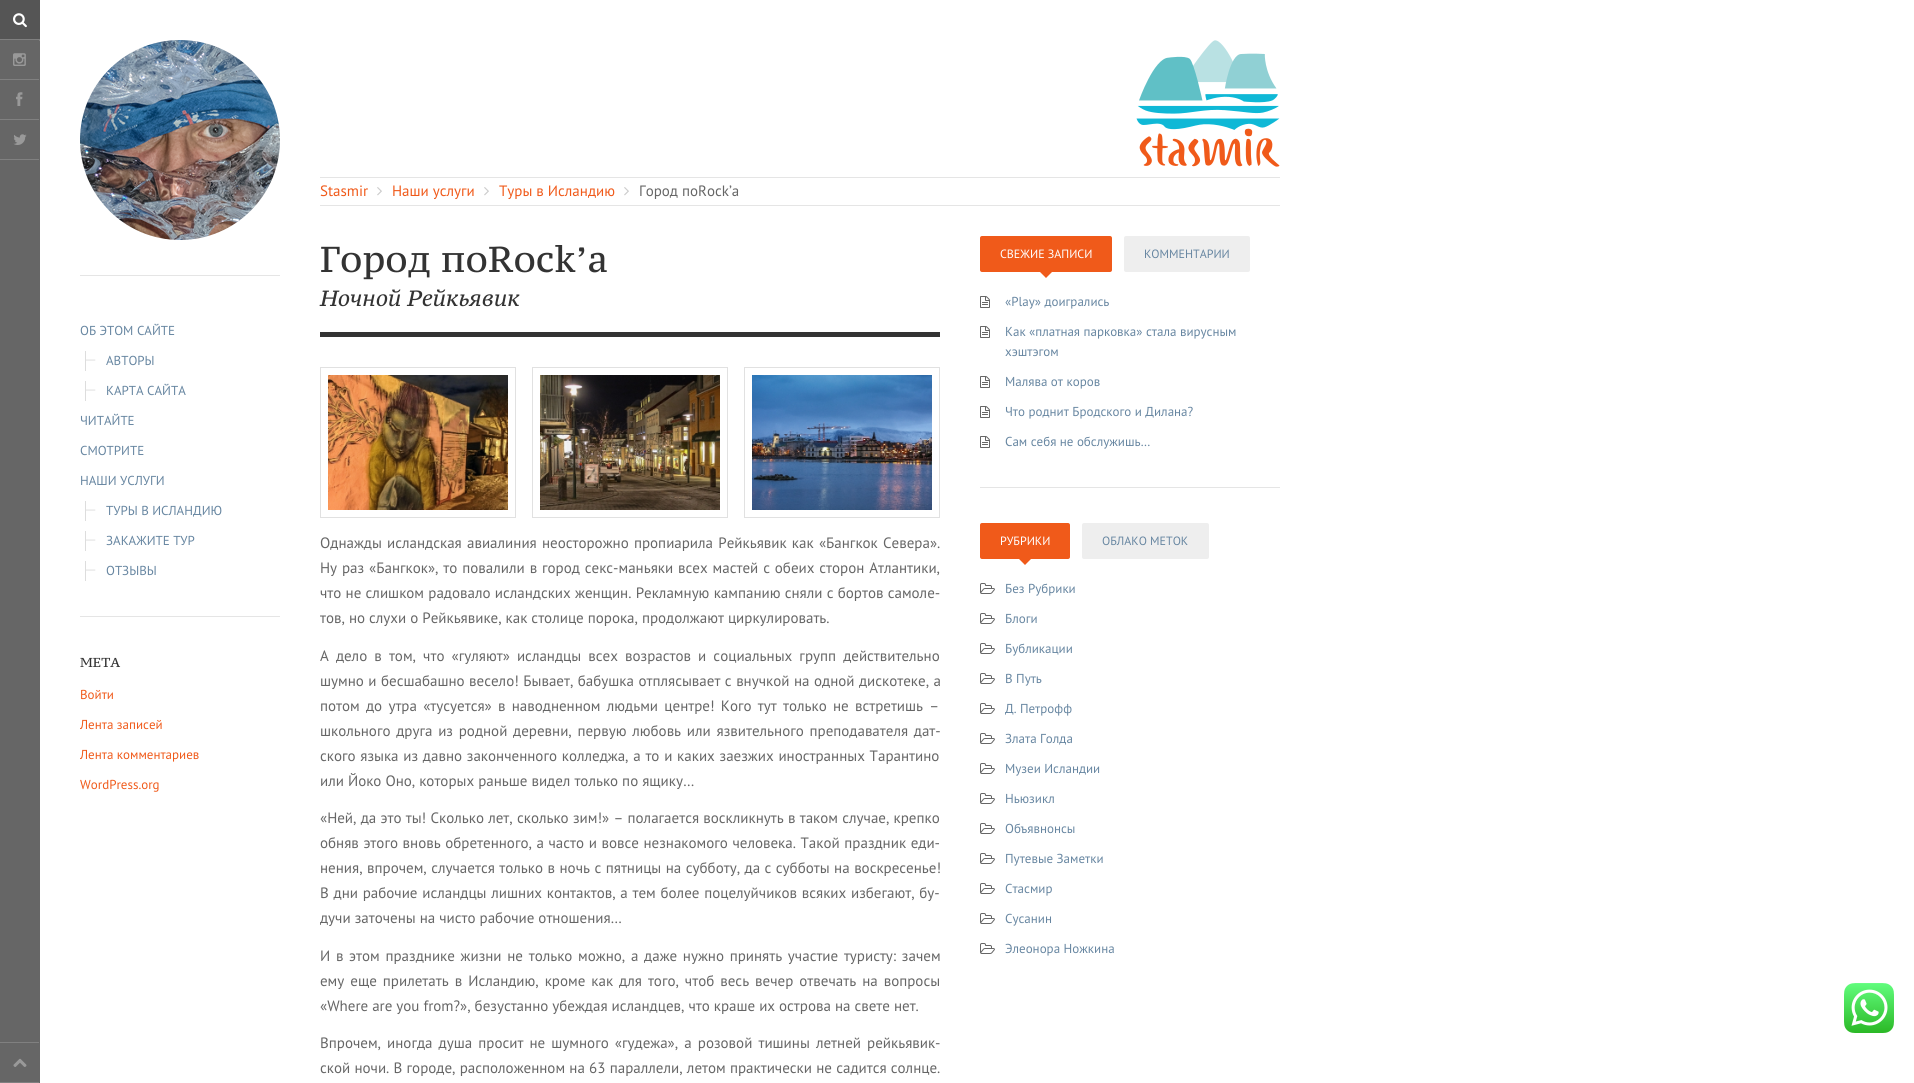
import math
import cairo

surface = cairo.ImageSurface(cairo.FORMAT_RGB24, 1914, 1083)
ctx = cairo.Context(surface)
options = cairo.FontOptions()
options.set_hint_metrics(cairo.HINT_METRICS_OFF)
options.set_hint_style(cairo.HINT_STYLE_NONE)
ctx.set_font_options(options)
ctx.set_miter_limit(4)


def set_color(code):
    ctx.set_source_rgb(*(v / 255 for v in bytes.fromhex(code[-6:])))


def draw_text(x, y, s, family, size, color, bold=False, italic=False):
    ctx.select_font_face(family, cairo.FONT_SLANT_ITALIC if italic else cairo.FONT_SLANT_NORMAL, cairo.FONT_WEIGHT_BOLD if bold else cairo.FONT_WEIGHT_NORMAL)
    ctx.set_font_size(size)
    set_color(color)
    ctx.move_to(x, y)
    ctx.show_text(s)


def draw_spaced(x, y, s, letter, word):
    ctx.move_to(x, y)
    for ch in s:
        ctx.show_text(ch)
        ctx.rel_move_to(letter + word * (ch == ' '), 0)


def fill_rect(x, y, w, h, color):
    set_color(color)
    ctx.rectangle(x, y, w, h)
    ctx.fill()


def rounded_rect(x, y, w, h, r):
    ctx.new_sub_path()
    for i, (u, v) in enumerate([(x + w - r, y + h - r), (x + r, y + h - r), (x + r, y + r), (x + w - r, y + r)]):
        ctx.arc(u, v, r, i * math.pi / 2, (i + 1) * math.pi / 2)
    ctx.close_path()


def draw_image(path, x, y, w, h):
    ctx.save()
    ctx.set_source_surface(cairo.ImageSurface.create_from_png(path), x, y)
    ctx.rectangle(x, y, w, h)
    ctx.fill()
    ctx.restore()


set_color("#ffffff")
ctx.paint()
fill_rect(0, 41, 40, 1042, "#666666")
fill_rect(0, 39, 40, 1, "#808080")
fill_rect(0, 0, 40, 39, "#555555")
draw_image("assets/img1.png", 13, 13, 14, 15)
fill_rect(39, 40, 1, 1, "#808080")
fill_rect(0, 79, 39, 1, "#808080")
fill_rect(0, 40, 39, 1, "#666666")
draw_image("assets/img2.png", 13, 53, 13, 13)
fill_rect(0, 119, 39, 1, "#808080")
draw_image("assets/img3.png", 16, 92, 7, 14)
fill_rect(0, 159, 39, 1, "#808080")
draw_image("assets/img4.png", 13, 134, 14, 11)
fill_rect(0, 1042, 39, 1, "#808080")
fill_rect(0, 1082, 39, 1, "#808080")
draw_image("assets/img5.png", 13, 1058, 14, 9)
draw_image("assets/img6.png", 80, 40, 200, 200)
fill_rect(80, 275, 200, 1, "#e5e5e5")
draw_text(80, 335, "ОБ ЭТОМ САЙТЕ", "PT Sans", 13, "#6786a1")
fill_rect(85, 351, 1, 20, "#dddddd")
draw_text(86, 364, "─", "Liberation Sans", 13, "#dddddd")
draw_text(106, 365, "АВТОРЫ", "PT Sans", 13, "#6786a1")
fill_rect(85, 381, 1, 20, "#dddddd")
draw_text(86, 394, "─", "Liberation Sans", 13, "#dddddd")
draw_text(106, 395, "КАРТА САЙТА", "PT Sans", 13, "#6786a1")
draw_text(80, 425, "ЧИТАЙТЕ", "PT Sans", 13, "#6786a1")
draw_text(80, 455, "СМОТРИТЕ", "PT Sans", 13, "#6786a1")
draw_text(80, 485, "НАШИ УСЛУГИ", "PT Sans", 13, "#6786a1")
fill_rect(85, 501, 1, 20, "#dddddd")
draw_text(86, 514, "─", "Liberation Sans", 13, "#dddddd")
draw_text(106, 515, "ТУРЫ В ИСЛАНДИЮ", "PT Sans", 13, "#6786a1")
fill_rect(85, 531, 1, 20, "#dddddd")
draw_text(86, 544, "─", "Liberation Sans", 13, "#dddddd")
draw_text(106, 545, "ЗАКАЖИТЕ ТУР", "PT Sans", 13, "#6786a1")
fill_rect(85, 561, 1, 20, "#dddddd")
draw_text(86, 574, "─", "Liberation Sans", 13, "#dddddd")
draw_text(106, 575, "ОТЗЫВЫ", "PT Sans", 13, "#6786a1")
fill_rect(80, 616, 200, 1, "#e5e5e5")
draw_text(80, 667, "МЕТА", "PT Serif Caption", 13, "#333333")
draw_text(80, 699, "Войти", "PT Sans", 13, "#f05a1a")
draw_text(80, 729, "Лента записей", "PT Sans", 13, "#f05a1a")
draw_text(80, 759, "Лента комментариев", "PT Sans", 13, "#f05a1a")
draw_text(80, 789, "WordPress.org", "PT Sans", 13, "#f05a1a")
fill_rect(320, 177, 960, 1, "#e5e5e5")
draw_image("assets/img7.png", 1136, 40, 144, 127)
fill_rect(320, 205, 960, 1, "#e5e5e5")
draw_text(320, 196, "Stasmir", "PT Sans", 15, "#f05a1a")
draw_image("assets/img8.png", 377, 187, 5, 9)
draw_text(392, 196, "Наши услуги", "PT Sans", 15, "#f05a1a")
draw_image("assets/img8.png", 484, 187, 5, 9)
draw_text(499, 196, "Туры в Исландию", "PT Sans", 15, "#f05a1a")
draw_image("assets/img8.png", 624, 187, 5, 9)
draw_text(639, 196, "Город поRock’а", "PT Sans", 15, "#666666")
fill_rect(320, 332, 620, 5, "#333333")
draw_text(320, 272, "Город поRock’а", "PT Serif Caption", 36, "#333333")
draw_text(320, 306, "Ночной Рейкьявик", "PT Serif Caption", 22, "#333333", italic=True)
ctx.rectangle(320.5, 367.5, 195, 150)
set_color("#e1e1e1")
ctx.set_line_width(1)
ctx.stroke()
draw_image("assets/img9.png", 328, 375, 180, 135)
ctx.rectangle(532.5, 367.5, 195, 150)
ctx.stroke()
draw_image("assets/img10.png", 540, 375, 180, 135)
ctx.rectangle(744.5, 367.5, 195, 150)
ctx.stroke()
draw_image("assets/img11.png", 752, 375, 180, 135)
ctx.select_font_face("PT Sans")
ctx.set_font_size(15)
set_color("#666666")
draw_spaced(320, 548, "Однажды исландская авиалиния неосторожно пропиарила Рейкьявик как «Бангкок Севера».", 0, 1.25)
draw_spaced(320, 573, "Ну раз «Бангкок», то повалили в город секс-маньяки всех мастей с обеих сторон Атлантики,", 0, 0.9)
draw_spaced(320, 598, "что не слишком радовало исландских женщин. Рекламную кампанию сняли с бортов самоле-", 0, 0.25)
draw_text(320, 623, "тов, но слухи о Рейкьявике, как столице порока, продолжают циркулировать.", "PT Sans", 15, "#666666")
draw_spaced(320, 661, "А дело в том, что «гуляют» исландцы всех возрастов и социальных групп действительно", 0, 3.1)
draw_spaced(320, 686, "шумно и бесшабашно весело! Бывает, бабушка отплясывает с внучкой на одной дискотеке, а", 0, 0.5)
draw_spaced(320, 711, "потом до утра «тусуется» в наводненном людьми центре! Кого тут только не встретишь –", 0, 2.25)
draw_spaced(320, 736, "школьного друга из родной деревни, первую любовь или язвительного преподавателя дат-", 0, 1.75)
draw_spaced(320, 761, "ского языка из давно законченного колледжа, а то и каких заезжих иностранных Тарантино", 0, 0.75)
draw_text(320, 786, "или Йоко Оно, которых раньше видел только по ящику…", "PT Sans", 15, "#666666")
draw_spaced(320, 823, "«Ней, да это ты! Сколько лет, сколько зим!» – полагается воскликнуть в таком случае, крепко", 0, 0.25)
draw_spaced(320, 848, "обняв этого вновь обретенного, а часто и вовсе незнакомого человека. Такой праздник еди-", 0, 0.6)
draw_spaced(320, 873, "нения, впрочем, случается только в ночь с пятницы на субботу, да с субботы на воскресенье!", 0, 0.5)
draw_spaced(320, 898, "В дни рабочие исландцы лишних контактов, а тем более поцелуйчиков всяких избегают, бу-", 0, 0.75)
draw_text(320, 923, "дучи заточены на чисто рабочие отношения…", "PT Sans", 15, "#666666")
draw_spaced(320, 961, "И в этом празднике жизни не только можно, а даже нужно принять участие туристу: зачем", 0, 1.7)
draw_spaced(320, 986, "ему еще прилетать в Исландию, кроме как для того, чтоб весь вечер отвечать на вопросы", 0, 2)
draw_text(320, 1011, "«Where are you from?», безустанно убеждая исландцев, что краше их острова на свете нет.", "PT Sans", 15, "#666666")
draw_spaced(320, 1048, "Впрочем, иногда душа просит не шумного «гудежа», а розовой тишины летней рейкьявик-", 0, 2.1)
draw_spaced(320, 1073, "ской ночи. В городе, расположенном на 63 параллели, летом практически не садится солнце.", 0, 0.25)
set_color("#f05a1a")
rounded_rect(980, 236, 132, 36, 2)
ctx.fill()
draw_text(1000, 258, "СВЕЖИЕ ЗАПИСИ", "PT Sans", 12, "#ffffff")
set_color("#f05a1a")
ctx.new_path()
ctx.move_to(1040, 272)
ctx.line_to(1052, 272)
ctx.line_to(1046, 278)
ctx.close_path()
ctx.fill()
set_color("#eeeeee")
rounded_rect(1124, 236, 126, 36, 2)
ctx.fill()
draw_text(1144, 258, "КОММЕНТАРИИ", "PT Sans", 12, "#6786a1")
draw_image("assets/img12.png", 980, 296, 10, 12)
draw_text(1005, 306, "«Play» доигрались", "PT Sans", 13, "#6786a1")
draw_image("assets/img12.png", 980, 326, 10, 12)
draw_text(1005, 336, "Как «платная парковка» стала вирусным", "PT Sans", 13, "#6786a1")
draw_text(1005, 356, "хэштэгом", "PT Sans", 13, "#6786a1")
draw_image("assets/img12.png", 980, 376, 10, 12)
draw_text(1005, 386, "Малява от коров", "PT Sans", 13, "#6786a1")
draw_image("assets/img12.png", 980, 406, 10, 12)
draw_text(1005, 416, "Что роднит Бродского и Дилана?", "PT Sans", 13, "#6786a1")
draw_image("assets/img12.png", 980, 436, 10, 12)
draw_text(1005, 446, "Сам себя не обслужишь…", "PT Sans", 13, "#6786a1")
fill_rect(980, 487, 300, 1, "#e5e5e5")
set_color("#f05a1a")
rounded_rect(980, 523, 90, 36, 2)
ctx.fill()
draw_text(1000, 545, "РУБРИКИ", "PT Sans", 12, "#ffffff")
set_color("#f05a1a")
ctx.new_path()
ctx.move_to(1019, 559)
ctx.line_to(1031, 559)
ctx.line_to(1025, 565)
ctx.close_path()
ctx.fill()
set_color("#eeeeee")
rounded_rect(1082, 523, 127, 36, 2)
ctx.fill()
draw_text(1102, 545, "ОБЛАКО МЕТОК", "PT Sans", 12, "#6786a1")
draw_image("assets/img13.png", 980, 583, 15, 11)
draw_text(1005, 593, "Без Рубрики", "PT Sans", 13, "#6786a1")
draw_image("assets/img13.png", 980, 613, 15, 11)
draw_text(1005, 623, "Блоги", "PT Sans", 13, "#6786a1")
draw_image("assets/img13.png", 980, 643, 15, 11)
draw_text(1005, 653, "Бубликации", "PT Sans", 13, "#6786a1")
draw_image("assets/img13.png", 980, 673, 15, 11)
draw_text(1005, 683, "В Путь", "PT Sans", 13, "#6786a1")
draw_image("assets/img13.png", 980, 703, 15, 11)
draw_text(1005, 713, "Д. Петрофф", "PT Sans", 13, "#6786a1")
draw_image("assets/img13.png", 980, 733, 15, 11)
draw_text(1005, 743, "Злата Голда", "PT Sans", 13, "#6786a1")
draw_image("assets/img13.png", 980, 763, 15, 11)
draw_text(1005, 773, "Музеи Исландии", "PT Sans", 13, "#6786a1")
draw_image("assets/img13.png", 980, 793, 15, 11)
draw_text(1005, 803, "Ньюзикл", "PT Sans", 13, "#6786a1")
draw_image("assets/img13.png", 980, 823, 15, 11)
draw_text(1005, 833, "Объявнонсы", "PT Sans", 13, "#6786a1")
draw_image("assets/img13.png", 980, 853, 15, 11)
draw_text(1005, 863, "Путевые Заметки", "PT Sans", 13, "#6786a1")
draw_image("assets/img13.png", 980, 883, 15, 11)
draw_text(1005, 893, "Стасмир", "PT Sans", 13, "#6786a1")
draw_image("assets/img13.png", 980, 913, 15, 11)
draw_text(1005, 923, "Сусанин", "PT Sans", 13, "#6786a1")
draw_image("assets/img13.png", 980, 943, 15, 11)
draw_text(1005, 953, "Элеонора Ножкина", "PT Sans", 13, "#6786a1")
draw_image("assets/img14.png", 1844, 983, 50, 50)
surface.write_to_png("output.png")
